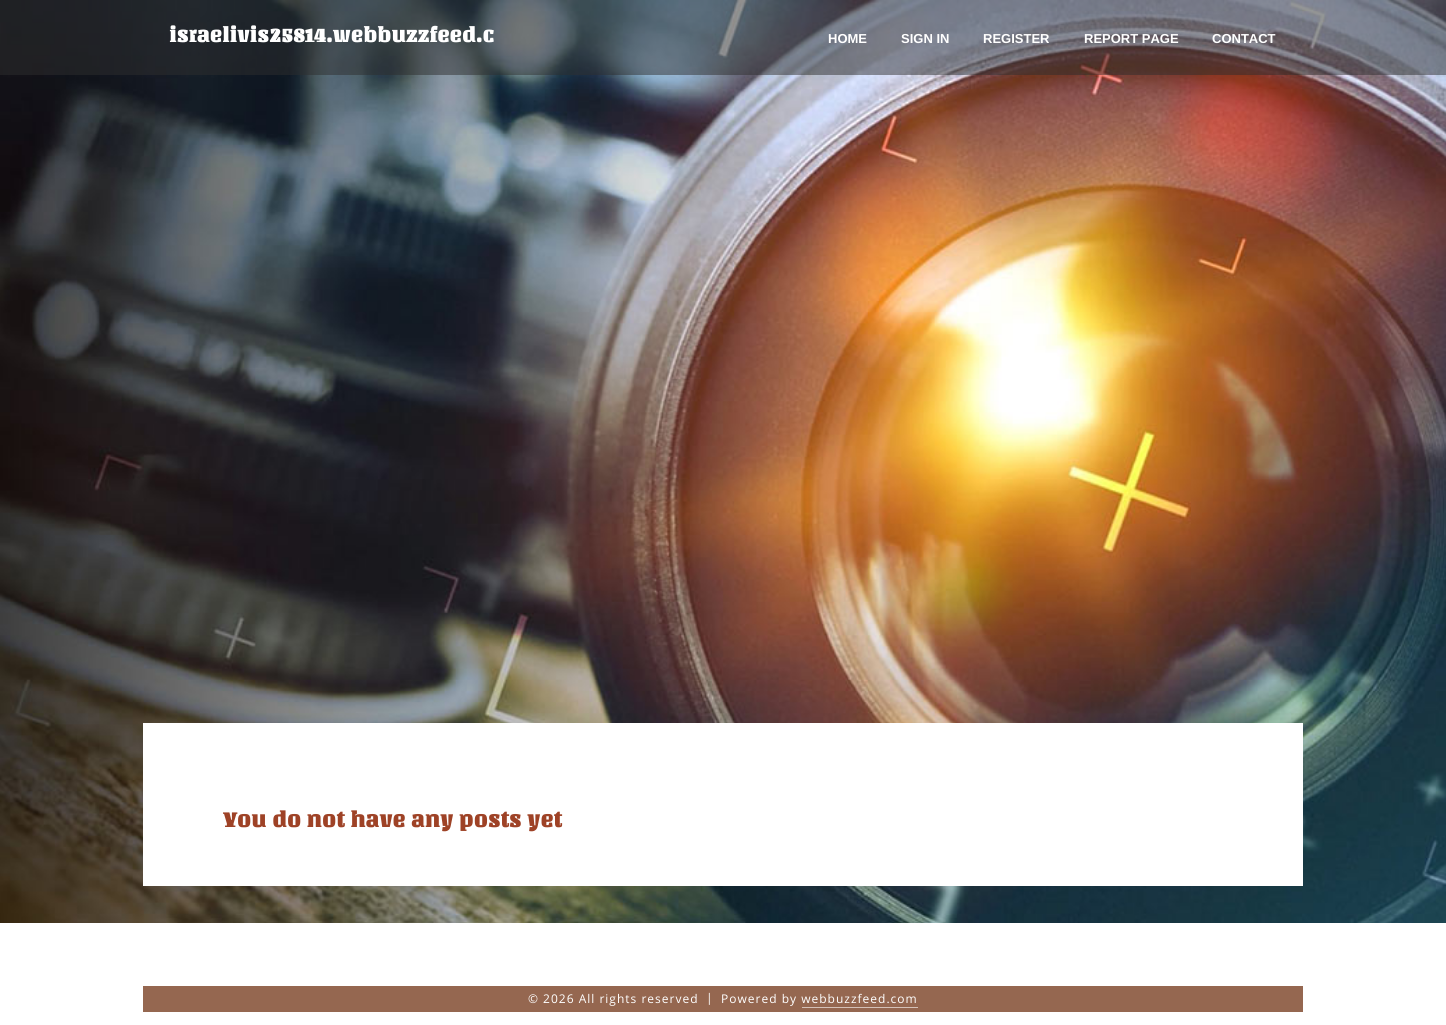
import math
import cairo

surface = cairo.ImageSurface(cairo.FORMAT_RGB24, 1446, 1025)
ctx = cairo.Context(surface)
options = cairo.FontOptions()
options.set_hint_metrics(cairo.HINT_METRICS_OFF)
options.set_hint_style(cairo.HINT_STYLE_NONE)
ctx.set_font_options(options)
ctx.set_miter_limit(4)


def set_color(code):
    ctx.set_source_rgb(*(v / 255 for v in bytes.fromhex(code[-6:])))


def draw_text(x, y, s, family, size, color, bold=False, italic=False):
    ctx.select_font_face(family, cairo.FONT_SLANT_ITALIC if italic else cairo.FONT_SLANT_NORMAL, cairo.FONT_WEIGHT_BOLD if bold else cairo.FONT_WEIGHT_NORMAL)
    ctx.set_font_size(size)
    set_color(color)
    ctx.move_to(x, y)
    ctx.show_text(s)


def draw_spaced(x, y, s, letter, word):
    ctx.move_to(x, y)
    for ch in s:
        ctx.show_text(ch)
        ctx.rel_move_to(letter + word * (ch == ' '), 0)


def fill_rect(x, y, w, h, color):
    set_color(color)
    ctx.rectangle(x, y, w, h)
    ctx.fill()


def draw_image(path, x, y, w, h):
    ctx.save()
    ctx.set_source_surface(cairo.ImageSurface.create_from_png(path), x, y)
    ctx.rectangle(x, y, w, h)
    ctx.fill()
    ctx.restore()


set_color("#ffffff")
ctx.paint()
draw_image("assets/img1.png", 0, 0, 1446, 923)
ctx.set_source_rgba(0.184, 0.184, 0.184, 0.5)
ctx.rectangle(0, 0, 1446, 75)
ctx.fill()
draw_text(169, 42, "israelivis25814.webbuzzfeed.c", "Unlock", 21, "#ffffff", bold=True)
draw_text(828, 43, "HOME", "Liberation Sans", 13, "#ffffff", bold=True)
draw_text(901, 43, "SIGN IN", "Liberation Sans", 13, "#ffffff", bold=True)
draw_text(983, 43, "REGISTER", "Liberation Sans", 13, "#ffffff", bold=True)
draw_text(1084, 43, "REPORT PAGE", "Liberation Sans", 13, "#ffffff", bold=True)
draw_text(1212, 43, "CONTACT", "Liberation Sans", 13, "#ffffff", bold=True)
fill_rect(143, 723, 1160, 163, "#ffffff")
draw_text(223, 827, "You do not have any posts yet", "Unlock", 22, "#9e4226", bold=True)
fill_rect(143, 986, 1160, 26, "#956750")
ctx.select_font_face("Open Sans")
ctx.set_font_size(12)
set_color("#ffffff")
draw_spaced(528, 1003, "© 2026 All rights reserved", 1, 0)
draw_spaced(706, 1002, "|", 1, 0)
draw_spaced(721, 1003, "Powered by webbuzzfeed.com", 1, 0)
fill_rect(802, 1007, 116, 1, "#d5c2b9")
surface.write_to_png("output.png")
